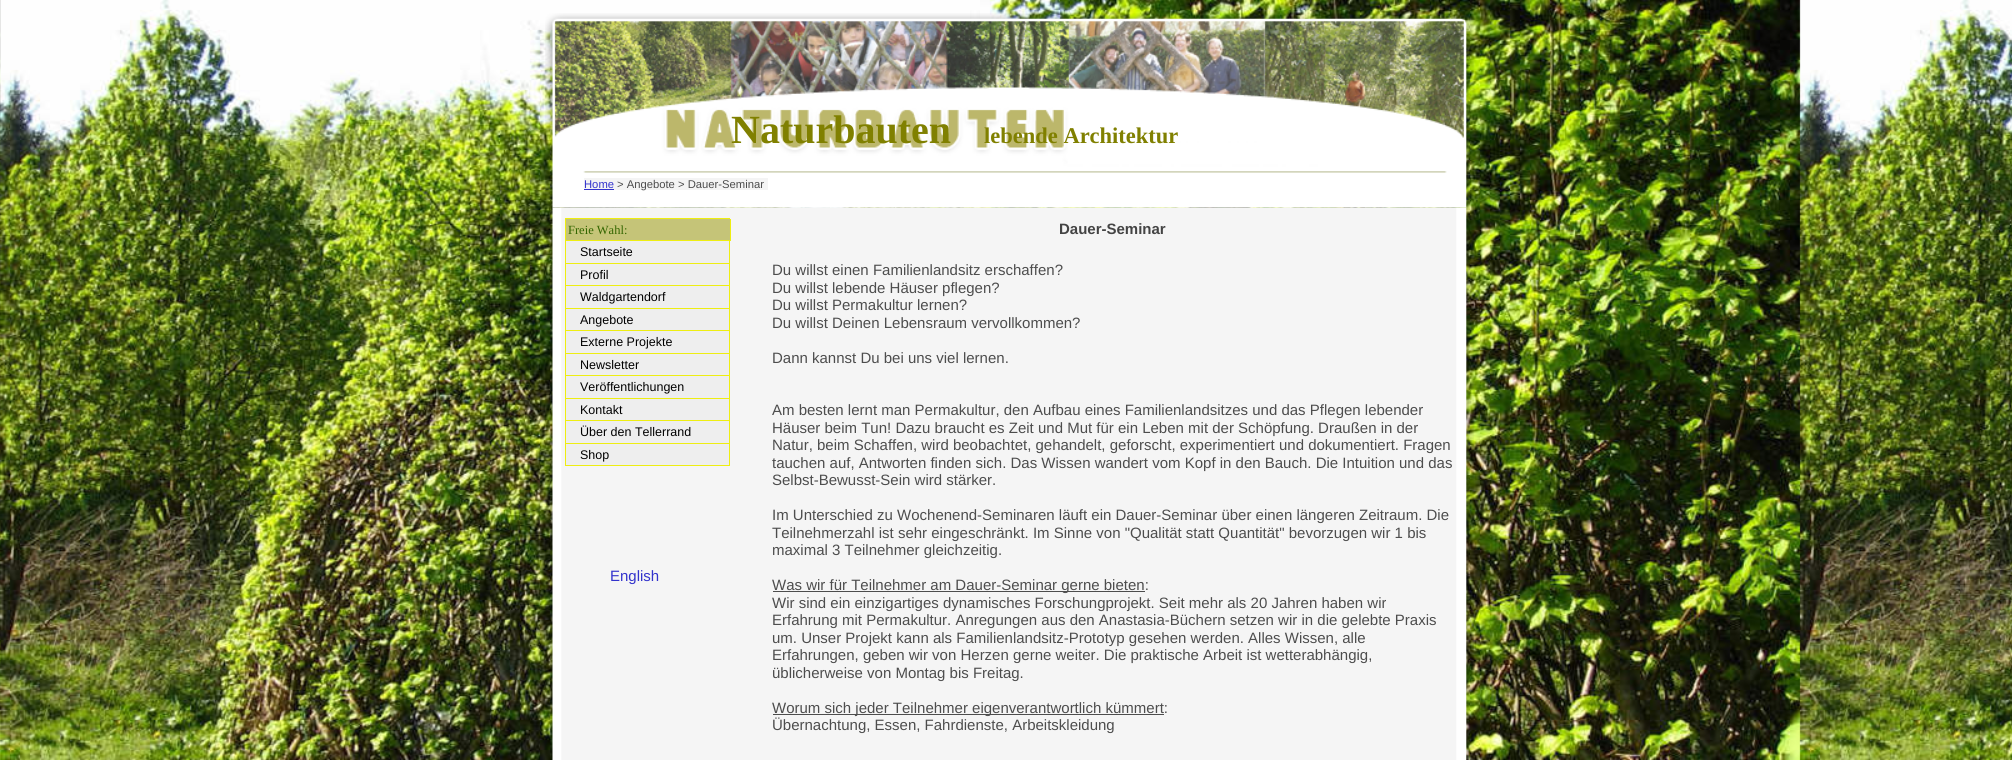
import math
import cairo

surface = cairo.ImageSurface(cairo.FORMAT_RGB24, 2012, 760)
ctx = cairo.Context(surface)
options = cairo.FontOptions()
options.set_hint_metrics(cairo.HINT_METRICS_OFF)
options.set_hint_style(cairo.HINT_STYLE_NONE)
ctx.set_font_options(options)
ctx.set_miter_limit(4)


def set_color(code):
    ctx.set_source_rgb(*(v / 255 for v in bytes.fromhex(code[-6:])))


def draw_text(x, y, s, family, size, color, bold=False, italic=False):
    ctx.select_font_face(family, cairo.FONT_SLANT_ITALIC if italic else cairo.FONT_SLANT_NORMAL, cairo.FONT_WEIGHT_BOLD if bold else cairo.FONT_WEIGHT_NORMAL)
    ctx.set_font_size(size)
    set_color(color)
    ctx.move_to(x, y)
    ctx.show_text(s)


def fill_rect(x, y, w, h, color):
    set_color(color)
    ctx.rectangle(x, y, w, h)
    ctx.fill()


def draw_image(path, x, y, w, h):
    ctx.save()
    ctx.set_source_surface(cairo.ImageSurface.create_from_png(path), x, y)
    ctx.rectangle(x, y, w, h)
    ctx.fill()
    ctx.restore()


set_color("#ffffff")
ctx.paint()
draw_image("assets/img1.png", 0, 0, 2012, 760)
draw_image("assets/img2.png", 545, 13, 929, 195)
draw_text(731, 143, "Naturbauten", "Liberation Serif", 40, "#808000", bold=True)
draw_text(984, 143, "lebende Architektur", "Liberation Serif", 22.5, "#808000", bold=True)
fill_rect(584, 178, 30, 11, "#f4f4f4")
draw_text(584, 188, "Home", "Liberation Sans", 11.25, "#3333cc")
fill_rect(614, 178, 154, 12, "#f4f4f4")
fill_rect(584, 189, 30, 1, "#3333cc")
draw_text(617, 188, "> Angebote > Dauer-Seminar", "Liberation Sans", 11.25, "#4d4d4d")
draw_image("assets/img3.png", 544, 207, 930, 553)
fill_rect(565, 218, 165, 1, "#eeee11")
fill_rect(566, 219, 164, 21, "#c5c478")
fill_rect(730, 219, 1, 22, "#eeee11")
fill_rect(565, 240, 166, 1, "#eeee11")
fill_rect(565, 219, 1, 22, "#eeee11")
draw_text(568, 234, "Freie Wahl:", "Liberation Serif", 12.5, "#336600")
fill_rect(566, 241, 163, 22, "#eeeeee")
fill_rect(729, 241, 1, 225, "#eeee11")
fill_rect(565, 263, 165, 1, "#eeee11")
fill_rect(565, 241, 1, 23, "#eeee11")
draw_text(580, 256, "Startseite", "Liberation Sans", 12.5, "#000000")
fill_rect(566, 264, 163, 21, "#eeeeee")
fill_rect(565, 285, 165, 1, "#eeee11")
fill_rect(565, 264, 1, 22, "#eeee11")
draw_text(580, 279, "Profil", "Liberation Sans", 12.5, "#000000")
fill_rect(566, 286, 163, 22, "#eeeeee")
fill_rect(565, 308, 165, 1, "#eeee11")
fill_rect(565, 286, 1, 23, "#eeee11")
draw_text(580, 301, "Waldgartendorf", "Liberation Sans", 12.5, "#000000")
fill_rect(566, 309, 163, 21, "#eeeeee")
fill_rect(565, 330, 165, 1, "#eeee11")
fill_rect(565, 309, 1, 22, "#eeee11")
draw_text(580, 324, "Angebote", "Liberation Sans", 12.5, "#000000")
fill_rect(566, 331, 163, 22, "#eeeeee")
fill_rect(565, 353, 165, 1, "#eeee11")
fill_rect(565, 331, 1, 23, "#eeee11")
draw_text(580, 346, "Externe Projekte", "Liberation Sans", 12.5, "#000000")
fill_rect(566, 354, 163, 21, "#eeeeee")
fill_rect(565, 375, 165, 1, "#eeee11")
fill_rect(565, 354, 1, 22, "#eeee11")
draw_text(580, 369, "Newsletter", "Liberation Sans", 12.5, "#000000")
fill_rect(566, 376, 163, 22, "#eeeeee")
fill_rect(565, 398, 165, 1, "#eeee11")
fill_rect(565, 376, 1, 23, "#eeee11")
draw_text(580, 391, "Veröffentlichungen", "Liberation Sans", 12.5, "#000000")
fill_rect(566, 399, 163, 21, "#eeeeee")
fill_rect(565, 420, 165, 1, "#eeee11")
fill_rect(565, 399, 1, 22, "#eeee11")
draw_text(580, 414, "Kontakt", "Liberation Sans", 12.5, "#000000")
fill_rect(566, 421, 163, 22, "#eeeeee")
fill_rect(565, 443, 165, 1, "#eeee11")
fill_rect(565, 421, 1, 23, "#eeee11")
draw_text(580, 436, "Über den Tellerrand", "Liberation Sans", 12.5, "#000000")
fill_rect(566, 444, 163, 21, "#eeeeee")
fill_rect(565, 465, 165, 1, "#eeee11")
fill_rect(565, 444, 1, 22, "#eeee11")
draw_text(580, 459, "Shop", "Liberation Sans", 12.5, "#000000")
draw_text(1059, 234, "Dauer-Seminar", "Liberation Sans", 15, "#444444", bold=True)
draw_text(772, 275, "Du willst einen Familienlandsitz erschaffen?", "Liberation Sans", 15, "#4d4d4d")
draw_text(772, 293, "Du willst lebende Häuser pflegen?", "Liberation Sans", 15, "#4d4d4d")
draw_text(772, 310, "Du willst Permakultur lernen?", "Liberation Sans", 15, "#4d4d4d")
draw_text(772, 328, "Du willst Deinen Lebensraum vervollkommen?", "Liberation Sans", 15, "#4d4d4d")
draw_text(772, 363, "Dann kannst Du bei uns viel lernen.", "Liberation Sans", 15, "#4d4d4d")
draw_text(772, 415, "Am besten lernt man Permakultur, den Aufbau eines Familienlandsitzes und das Pflegen lebender", "Liberation Sans", 15, "#4d4d4d")
draw_text(772, 433, "Häuser beim Tun! Dazu braucht es Zeit und Mut für ein Leben mit der Schöpfung. Draußen in der", "Liberation Sans", 15, "#4d4d4d")
draw_text(772, 450, "Natur, beim Schaffen, wird beobachtet, gehandelt, geforscht, experimentiert und dokumentiert. Fragen", "Liberation Sans", 15, "#4d4d4d")
draw_text(772, 468, "tauchen auf, Antworten finden sich. Das Wissen wandert vom Kopf in den Bauch. Die Intuition und das", "Liberation Sans", 15, "#4d4d4d")
draw_text(772, 485, "Selbst-Bewusst-Sein wird stärker.", "Liberation Sans", 15, "#4d4d4d")
draw_text(772, 520, "Im Unterschied zu Wochenend-Seminaren läuft ein Dauer-Seminar über einen längeren Zeitraum. Die", "Liberation Sans", 15, "#4d4d4d")
draw_text(772, 538, "Teilnehmerzahl ist sehr eingeschränkt. Im Sinne von \"Qualität statt Quantität\" bevorzugen wir 1 bis", "Liberation Sans", 15, "#4d4d4d")
draw_text(772, 555, "maximal 3 Teilnehmer gleichzeitig.", "Liberation Sans", 15, "#4d4d4d")
fill_rect(773, 591, 372, 1, "#4d4d4d")
draw_text(772, 590, "Was wir für Teilnehmer am Dauer-Seminar gerne bieten:", "Liberation Sans", 15, "#4d4d4d")
draw_text(772, 608, "Wir sind ein einzigartiges dynamisches Forschungprojekt. Seit mehr als 20 Jahren haben wir", "Liberation Sans", 15, "#4d4d4d")
draw_text(772, 625, "Erfahrung mit Permakultur. Anregungen aus den Anastasia-Büchern setzen wir in die gelebte Praxis", "Liberation Sans", 15, "#4d4d4d")
draw_text(772, 643, "um. Unser Projekt kann als Familienlandsitz-Prototyp gesehen werden. Alles Wissen, alle", "Liberation Sans", 15, "#4d4d4d")
draw_text(772, 660, "Erfahrungen, geben wir von Herzen gerne weiter. Die praktische Arbeit ist wetterabhängig,", "Liberation Sans", 15, "#4d4d4d")
draw_text(772, 678, "üblicherweise von Montag bis Freitag.", "Liberation Sans", 15, "#4d4d4d")
fill_rect(773, 714, 391, 1, "#4d4d4d")
draw_text(772, 713, "Worum sich jeder Teilnehmer eigenverantwortlich kümmert:", "Liberation Sans", 15, "#4d4d4d")
draw_text(772, 730, "Übernachtung, Essen, Fahrdienste, Arbeitskleidung", "Liberation Sans", 15, "#4d4d4d")
draw_text(610, 581, "English", "Liberation Sans", 15, "#3333cc")
surface.write_to_png("output.png")
